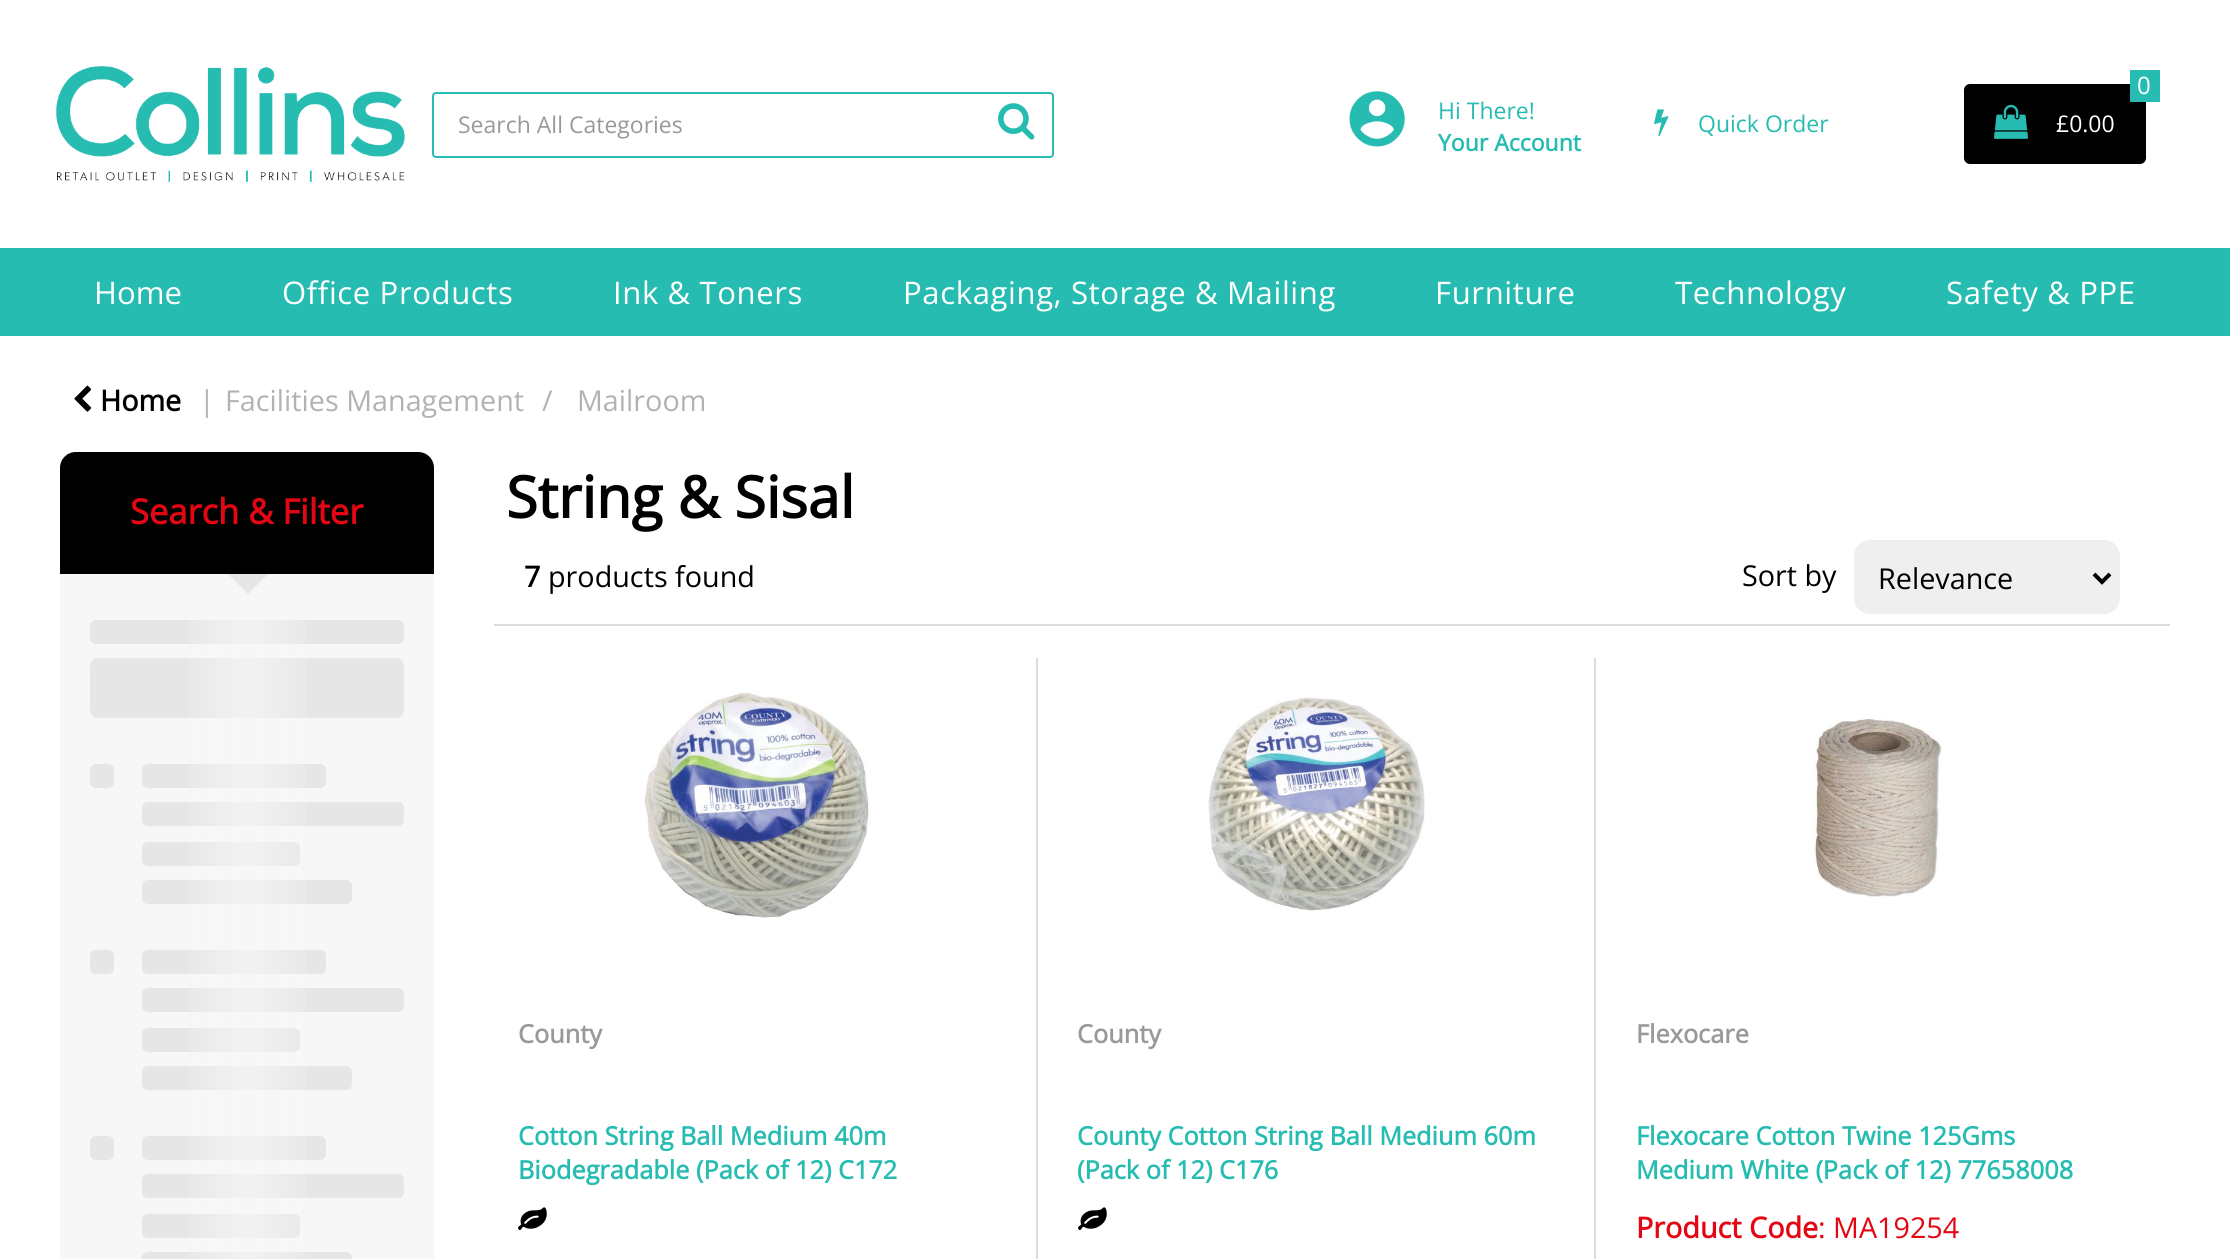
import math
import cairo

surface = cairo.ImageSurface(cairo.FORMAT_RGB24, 2230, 1259)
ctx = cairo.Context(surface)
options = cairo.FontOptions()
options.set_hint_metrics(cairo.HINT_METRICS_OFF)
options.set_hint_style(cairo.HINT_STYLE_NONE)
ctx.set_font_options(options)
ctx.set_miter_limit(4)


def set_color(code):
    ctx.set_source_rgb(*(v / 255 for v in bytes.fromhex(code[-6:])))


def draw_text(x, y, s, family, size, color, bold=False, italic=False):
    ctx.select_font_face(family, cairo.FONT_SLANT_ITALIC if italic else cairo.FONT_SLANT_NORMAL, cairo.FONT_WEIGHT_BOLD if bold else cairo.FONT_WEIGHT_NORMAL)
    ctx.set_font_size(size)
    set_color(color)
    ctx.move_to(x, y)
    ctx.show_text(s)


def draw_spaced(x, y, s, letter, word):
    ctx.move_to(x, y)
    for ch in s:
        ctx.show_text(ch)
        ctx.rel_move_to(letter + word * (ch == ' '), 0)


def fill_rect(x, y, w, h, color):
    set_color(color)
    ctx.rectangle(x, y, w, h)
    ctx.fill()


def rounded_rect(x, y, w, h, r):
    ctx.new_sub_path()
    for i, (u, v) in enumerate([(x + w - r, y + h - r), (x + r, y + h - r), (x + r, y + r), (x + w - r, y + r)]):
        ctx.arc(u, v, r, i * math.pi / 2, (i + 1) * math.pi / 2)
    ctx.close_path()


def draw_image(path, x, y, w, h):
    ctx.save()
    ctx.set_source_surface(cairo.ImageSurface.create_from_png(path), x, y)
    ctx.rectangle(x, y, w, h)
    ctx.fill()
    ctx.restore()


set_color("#ffffff")
ctx.paint()
draw_image("assets/img1.png", 55, 66, 350, 116)
rounded_rect(433, 93, 620, 64, 3)
set_color("#26bcb1")
ctx.stroke()
draw_text(458, 133, "Search All Categories", "Open Sans", 23, "#999999")
draw_image("assets/img2.png", 998, 103, 37, 37)
draw_image("assets/img3.png", 1349, 91, 56, 56)
draw_text(1438, 119, "Hi There!", "Open Sans", 23, "#26bcb1")
draw_text(1438, 151, "Your Account", "Open Sans", 23, "#26bcb1", bold=True)
draw_image("assets/img4.png", 1654, 109, 15, 28)
draw_text(1698, 132, "Quick Order", "Open Sans", 23, "#26bcb1")
set_color("#000000")
rounded_rect(1964, 84, 182, 80, 6)
ctx.fill()
fill_rect(2130, 70, 30, 32, "#26bcb1")
draw_text(2137, 94, "0", "Open Sans", 24, "#ffffff")
draw_image("assets/img5.png", 1994, 104, 34, 35)
draw_text(2056, 132, "£0.00", "Open Sans", 23, "#ffffff")
fill_rect(0, 248, 2230, 88, "#26bcb1")
draw_text(94, 304, "Home", "Open Sans", 31.1, "#ffffff")
draw_spaced(282, 304, "Office Products", 0.6, 0)
draw_spaced(613, 304, "Ink & Toners", 0.6, 0)
draw_spaced(903, 304, "Packaging, Storage & Mailing", 0.6, 0)
draw_spaced(1435, 304, "Furniture", 0.6, 0)
draw_spaced(1675, 304, "Technology", 0.6, 0)
draw_spaced(1946, 304, "Safety & PPE", 0.6, 0)
draw_image("assets/img6.png", 74, 385, 18, 27)
draw_text(100, 411, "Home", "Open Sans", 28.75, "#000000", bold=True)
draw_text(199, 411, "|", "Open Sans", 28.75, "#b2b2b2")
draw_text(225, 411, "Facilities Management", "Open Sans", 28.75, "#b2b2b2")
draw_text(542, 411, "/", "Open Sans", 28.75, "#b2b2b2")
draw_text(577, 411, "Mailroom", "Open Sans", 28.75, "#b2b2b2")
fill_rect(60, 574, 374, 685, "#f7f7f7")
set_color("#000000")
ctx.new_path()
ctx.move_to(76, 452)
ctx.line_to(418, 452)
ctx.curve_to(427, 452, 434, 459, 434, 468)
ctx.line_to(434, 574)
ctx.line_to(60, 574)
ctx.line_to(60, 468)
ctx.curve_to(60, 459, 67, 452, 76, 452)
ctx.close_path()
ctx.fill()
draw_text(130, 524, "Search & Filter", "Open Sans", 34.5, "#e30613", bold=True)
set_color("#e6e6e6")
ctx.new_path()
ctx.move_to(228, 574)
ctx.line_to(268, 574)
ctx.line_to(248, 594)
ctx.close_path()
ctx.fill()
rounded_rect(90, 620, 314, 24, 6)
ctx.fill()
rounded_rect(90, 658, 314, 60, 8)
ctx.fill()
rounded_rect(142, 764, 184, 24, 6)
ctx.fill()
rounded_rect(90, 764, 24, 24, 6)
ctx.fill()
rounded_rect(142, 802, 262, 24, 6)
ctx.fill()
rounded_rect(142, 842, 158, 24, 6)
ctx.fill()
rounded_rect(142, 880, 210, 24, 6)
ctx.fill()
rounded_rect(142, 950, 184, 24, 6)
ctx.fill()
rounded_rect(90, 950, 24, 24, 6)
ctx.fill()
rounded_rect(142, 988, 262, 24, 6)
ctx.fill()
rounded_rect(142, 1028, 158, 24, 6)
ctx.fill()
rounded_rect(142, 1066, 210, 24, 6)
ctx.fill()
rounded_rect(142, 1136, 184, 24, 6)
ctx.fill()
rounded_rect(90, 1136, 24, 24, 6)
ctx.fill()
rounded_rect(142, 1174, 262, 24, 6)
ctx.fill()
rounded_rect(142, 1214, 158, 24, 6)
ctx.fill()
rounded_rect(142, 1252, 210, 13, 6)
ctx.fill()
gradient = cairo.LinearGradient(-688, 973, 1182, 973)
gradient.add_color_stop_rgba(0.46, 0.969, 0.969, 0.969, 0)
gradient.add_color_stop_rgba(0.5, 0.969, 0.969, 0.969, 0.7)
gradient.add_color_stop_rgba(0.54, 0.969, 0.969, 0.969, 0)
ctx.set_source(gradient)
ctx.rectangle(188, 620, 118, 639)
ctx.fill()
draw_text(506, 518, "String & Sisal", "Open Sans", 57.5, "#000000", bold=True)
draw_text(524, 587, "7", "Open Sans", 28.75, "#000000", bold=True)
draw_text(548, 587, "products found", "Open Sans", 28.75, "#000000")
draw_text(1742, 586, "Sort by", "Open Sans", 28.75, "#000000")
set_color("#efefef")
rounded_rect(1855, 541, 264, 72, 15)
ctx.fill_preserve()
ctx.stroke()
ctx.new_path()
ctx.move_to(2094, 574)
ctx.line_to(2102, 582)
ctx.line_to(2110, 574)
set_color("#000000")
ctx.set_line_width(4)
ctx.stroke()
draw_text(1878, 589, "Relevance", "Open Sans", 28.75, "#000000")
fill_rect(494, 624, 1676, 2, "#dddddd")
fill_rect(1036, 658, 2, 601, "#dddddd")
draw_image("assets/img7.png", 644, 692, 226, 226)
draw_text(518, 1043, "County", "Open Sans", 25.3, "#999999", bold=True)
draw_text(518, 1145, "Cotton String Ball Medium 40m", "Open Sans", 25.3, "#26bcb1", bold=True)
draw_text(518, 1179, "Biodegradable (Pack of 12) C172", "Open Sans", 25.3, "#26bcb1", bold=True)
draw_image("assets/img8.png", 518, 1207, 29, 23)
fill_rect(1594, 658, 2, 601, "#dddddd")
draw_image("assets/img9.png", 1208, 697, 217, 215)
draw_text(1077, 1043, "County", "Open Sans", 25.3, "#999999", bold=True)
draw_text(1077, 1145, "County Cotton String Ball Medium 60m", "Open Sans", 25.3, "#26bcb1", bold=True)
draw_text(1077, 1179, "(Pack of 12) C176", "Open Sans", 25.3, "#26bcb1", bold=True)
draw_image("assets/img8.png", 1078, 1207, 29, 23)
draw_image("assets/img10.png", 1812, 716, 130, 182)
draw_text(1636, 1043, "Flexocare", "Open Sans", 25.3, "#999999", bold=True)
draw_text(1636, 1145, "Flexocare Cotton Twine 125Gms", "Open Sans", 25.3, "#26bcb1", bold=True)
draw_text(1636, 1179, "Medium White (Pack of 12) 77658008", "Open Sans", 25.3, "#26bcb1", bold=True)
draw_text(1636, 1238, "Product Code", "Open Sans", 28.75, "#e30613", bold=True)
draw_text(1818, 1238, ": MA19254", "Open Sans", 28.75, "#e30613")
surface.write_to_png("output.png")
